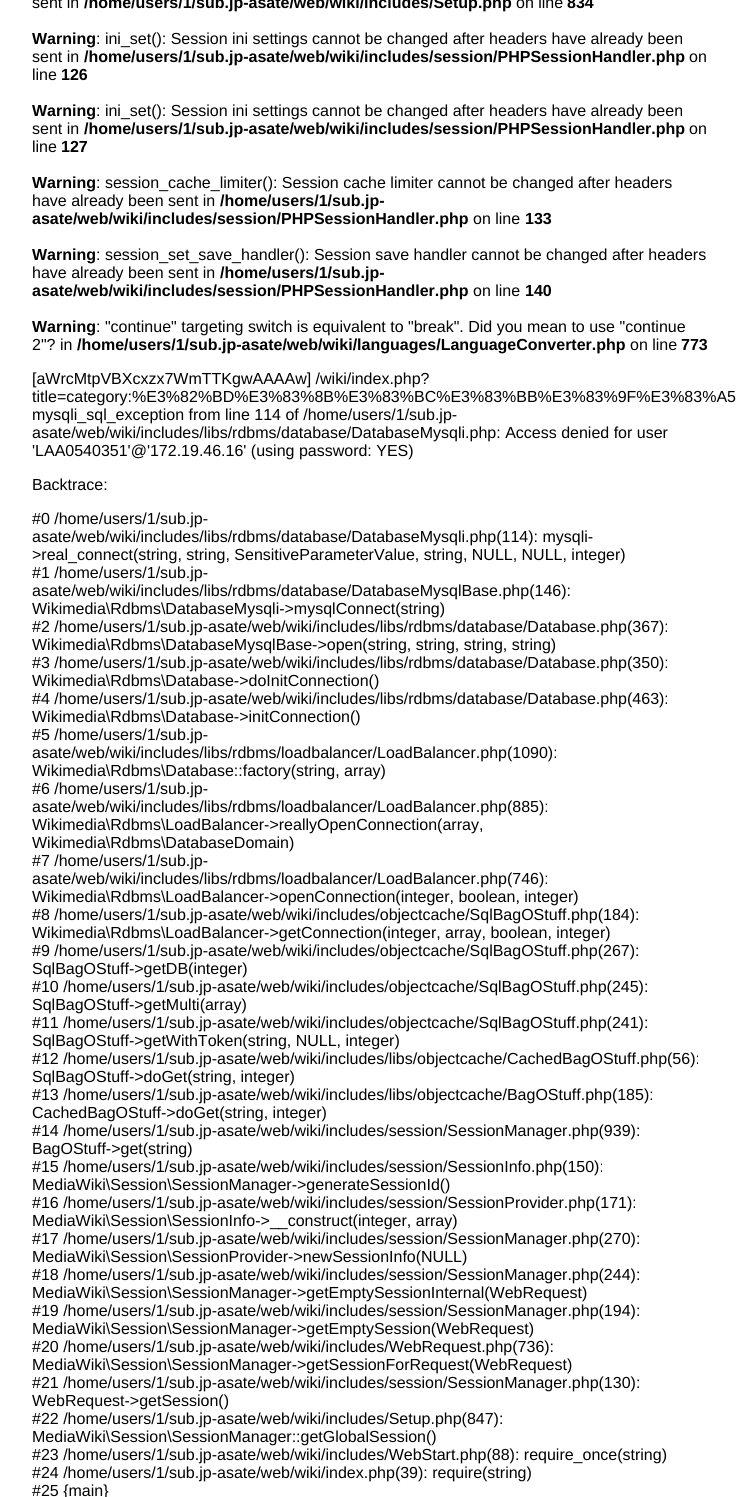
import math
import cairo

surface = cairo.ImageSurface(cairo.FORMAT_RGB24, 741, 1497)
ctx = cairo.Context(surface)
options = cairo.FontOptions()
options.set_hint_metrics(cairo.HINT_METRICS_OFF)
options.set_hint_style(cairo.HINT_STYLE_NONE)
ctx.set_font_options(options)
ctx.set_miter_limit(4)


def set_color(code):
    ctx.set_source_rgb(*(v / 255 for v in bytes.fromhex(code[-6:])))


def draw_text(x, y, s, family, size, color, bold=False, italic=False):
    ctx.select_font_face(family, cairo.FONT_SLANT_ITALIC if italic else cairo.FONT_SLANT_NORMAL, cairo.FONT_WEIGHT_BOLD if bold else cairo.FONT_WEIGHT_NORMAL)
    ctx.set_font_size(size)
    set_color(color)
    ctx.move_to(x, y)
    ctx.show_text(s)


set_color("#ffffff")
ctx.paint()
draw_text(32, 8, "sent in", "Liberation Sans", 16, "#000000")
draw_text(84, 8, "/home/users/1/sub.jp-asate/web/wiki/includes/Setup.php", "Liberation Sans", 16, "#000000", bold=True)
draw_text(516, 8, "on line", "Liberation Sans", 16, "#000000")
draw_text(567, 8, "834", "Liberation Sans", 16, "#000000", bold=True)
draw_text(32, 44, "Warning", "Liberation Sans", 16, "#000000", bold=True)
draw_text(96, 44, ": ini_set(): Session ini settings cannot be changed after headers have already been", "Liberation Sans", 16, "#000000")
draw_text(32, 62, "sent in", "Liberation Sans", 16, "#000000")
draw_text(84, 62, "/home/users/1/sub.jp-asate/web/wiki/includes/session/PHPSessionHandler.php", "Liberation Sans", 16, "#000000", bold=True)
draw_text(689, 62, "on", "Liberation Sans", 16, "#000000")
draw_text(32, 80, "line", "Liberation Sans", 16, "#000000")
draw_text(61, 80, "126", "Liberation Sans", 16, "#000000", bold=True)
draw_text(32, 116, "Warning", "Liberation Sans", 16, "#000000", bold=True)
draw_text(96, 116, ": ini_set(): Session ini settings cannot be changed after headers have already been", "Liberation Sans", 16, "#000000")
draw_text(32, 134, "sent in", "Liberation Sans", 16, "#000000")
draw_text(84, 134, "/home/users/1/sub.jp-asate/web/wiki/includes/session/PHPSessionHandler.php", "Liberation Sans", 16, "#000000", bold=True)
draw_text(689, 134, "on", "Liberation Sans", 16, "#000000")
draw_text(32, 152, "line", "Liberation Sans", 16, "#000000")
draw_text(61, 152, "127", "Liberation Sans", 16, "#000000", bold=True)
draw_text(32, 188, "Warning", "Liberation Sans", 16, "#000000", bold=True)
draw_text(96, 188, ": session_cache_limiter(): Session cache limiter cannot be changed after headers", "Liberation Sans", 16, "#000000")
draw_text(32, 206, "have already been sent in", "Liberation Sans", 16, "#000000")
draw_text(220, 206, "/home/users/1/sub.jp-", "Liberation Sans", 16, "#000000", bold=True)
draw_text(32, 224, "asate/web/wiki/includes/session/PHPSessionHandler.php", "Liberation Sans", 16, "#000000", bold=True)
draw_text(473, 224, "on line", "Liberation Sans", 16, "#000000")
draw_text(525, 224, "133", "Liberation Sans", 16, "#000000", bold=True)
draw_text(32, 260, "Warning", "Liberation Sans", 16, "#000000", bold=True)
draw_text(96, 260, ": session_set_save_handler(): Session save handler cannot be changed after headers", "Liberation Sans", 16, "#000000")
draw_text(32, 278, "have already been sent in", "Liberation Sans", 16, "#000000")
draw_text(220, 278, "/home/users/1/sub.jp-", "Liberation Sans", 16, "#000000", bold=True)
draw_text(32, 296, "asate/web/wiki/includes/session/PHPSessionHandler.php", "Liberation Sans", 16, "#000000", bold=True)
draw_text(473, 296, "on line", "Liberation Sans", 16, "#000000")
draw_text(525, 296, "140", "Liberation Sans", 16, "#000000", bold=True)
draw_text(32, 332, "Warning", "Liberation Sans", 16, "#000000", bold=True)
draw_text(96, 332, ": \"continue\" targeting switch is equivalent to \"break\". Did you mean to use \"continue", "Liberation Sans", 16, "#000000")
draw_text(32, 350, "2\"? in", "Liberation Sans", 16, "#000000")
draw_text(77, 350, "/home/users/1/sub.jp-asate/web/wiki/languages/LanguageConverter.php", "Liberation Sans", 16, "#000000", bold=True)
draw_text(630, 350, "on line", "Liberation Sans", 16, "#000000")
draw_text(681, 350, "773", "Liberation Sans", 16, "#000000", bold=True)
draw_text(32, 384, "[aWrcMtpVBXcxzx7WmTTKgwAAAAw] /wiki/index.php?", "Liberation Sans", 16, "#000000")
draw_text(32, 402, "title=category:%E3%82%BD%E3%83%8B%E3%83%BC%E3%83%BB%E3%83%9F%E3%83%A5", "Liberation Sans", 16, "#000000")
draw_text(32, 420, "mysqli_sql_exception from line 114 of /home/users/1/sub.jp-", "Liberation Sans", 16, "#000000")
draw_text(32, 438, "asate/web/wiki/includes/libs/rdbms/database/DatabaseMysqli.php: Access denied for user", "Liberation Sans", 16, "#000000")
draw_text(32, 456, "'LAA0540351'@'172.19.46.16' (using password: YES)", "Liberation Sans", 16, "#000000")
draw_text(32, 490, "Backtrace:", "Liberation Sans", 16, "#000000")
draw_text(32, 524, "#0 /home/users/1/sub.jp-", "Liberation Sans", 16, "#000000")
draw_text(32, 542, "asate/web/wiki/includes/libs/rdbms/database/DatabaseMysqli.php(114): mysqli-", "Liberation Sans", 16, "#000000")
draw_text(32, 560, ">real_connect(string, string, SensitiveParameterValue, string, NULL, NULL, integer)", "Liberation Sans", 16, "#000000")
draw_text(32, 578, "#1 /home/users/1/sub.jp-", "Liberation Sans", 16, "#000000")
draw_text(32, 596, "asate/web/wiki/includes/libs/rdbms/database/DatabaseMysqlBase.php(146):", "Liberation Sans", 16, "#000000")
draw_text(32, 614, "Wikimedia\\Rdbms\\DatabaseMysqli->mysqlConnect(string)", "Liberation Sans", 16, "#000000")
draw_text(32, 632, "#2 /home/users/1/sub.jp-asate/web/wiki/includes/libs/rdbms/database/Database.php(367):", "Liberation Sans", 16, "#000000")
draw_text(32, 650, "Wikimedia\\Rdbms\\DatabaseMysqlBase->open(string, string, string, string)", "Liberation Sans", 16, "#000000")
draw_text(32, 668, "#3 /home/users/1/sub.jp-asate/web/wiki/includes/libs/rdbms/database/Database.php(350):", "Liberation Sans", 16, "#000000")
draw_text(32, 686, "Wikimedia\\Rdbms\\Database->doInitConnection()", "Liberation Sans", 16, "#000000")
draw_text(32, 704, "#4 /home/users/1/sub.jp-asate/web/wiki/includes/libs/rdbms/database/Database.php(463):", "Liberation Sans", 16, "#000000")
draw_text(32, 722, "Wikimedia\\Rdbms\\Database->initConnection()", "Liberation Sans", 16, "#000000")
draw_text(32, 740, "#5 /home/users/1/sub.jp-", "Liberation Sans", 16, "#000000")
draw_text(32, 758, "asate/web/wiki/includes/libs/rdbms/loadbalancer/LoadBalancer.php(1090):", "Liberation Sans", 16, "#000000")
draw_text(32, 776, "Wikimedia\\Rdbms\\Database::factory(string, array)", "Liberation Sans", 16, "#000000")
draw_text(32, 794, "#6 /home/users/1/sub.jp-", "Liberation Sans", 16, "#000000")
draw_text(32, 812, "asate/web/wiki/includes/libs/rdbms/loadbalancer/LoadBalancer.php(885):", "Liberation Sans", 16, "#000000")
draw_text(32, 830, "Wikimedia\\Rdbms\\LoadBalancer->reallyOpenConnection(array,", "Liberation Sans", 16, "#000000")
draw_text(32, 848, "Wikimedia\\Rdbms\\DatabaseDomain)", "Liberation Sans", 16, "#000000")
draw_text(32, 866, "#7 /home/users/1/sub.jp-", "Liberation Sans", 16, "#000000")
draw_text(32, 884, "asate/web/wiki/includes/libs/rdbms/loadbalancer/LoadBalancer.php(746):", "Liberation Sans", 16, "#000000")
draw_text(32, 902, "Wikimedia\\Rdbms\\LoadBalancer->openConnection(integer, boolean, integer)", "Liberation Sans", 16, "#000000")
draw_text(32, 920, "#8 /home/users/1/sub.jp-asate/web/wiki/includes/objectcache/SqlBagOStuff.php(184):", "Liberation Sans", 16, "#000000")
draw_text(32, 938, "Wikimedia\\Rdbms\\LoadBalancer->getConnection(integer, array, boolean, integer)", "Liberation Sans", 16, "#000000")
draw_text(32, 956, "#9 /home/users/1/sub.jp-asate/web/wiki/includes/objectcache/SqlBagOStuff.php(267):", "Liberation Sans", 16, "#000000")
draw_text(32, 974, "SqlBagOStuff->getDB(integer)", "Liberation Sans", 16, "#000000")
draw_text(32, 992, "#10 /home/users/1/sub.jp-asate/web/wiki/includes/objectcache/SqlBagOStuff.php(245):", "Liberation Sans", 16, "#000000")
draw_text(32, 1010, "SqlBagOStuff->getMulti(array)", "Liberation Sans", 16, "#000000")
draw_text(32, 1028, "#11 /home/users/1/sub.jp-asate/web/wiki/includes/objectcache/SqlBagOStuff.php(241):", "Liberation Sans", 16, "#000000")
draw_text(32, 1046, "SqlBagOStuff->getWithToken(string, NULL, integer)", "Liberation Sans", 16, "#000000")
draw_text(32, 1064, "#12 /home/users/1/sub.jp-asate/web/wiki/includes/libs/objectcache/CachedBagOStuff.php(56):", "Liberation Sans", 16, "#000000")
draw_text(32, 1082, "SqlBagOStuff->doGet(string, integer)", "Liberation Sans", 16, "#000000")
draw_text(32, 1100, "#13 /home/users/1/sub.jp-asate/web/wiki/includes/libs/objectcache/BagOStuff.php(185):", "Liberation Sans", 16, "#000000")
draw_text(32, 1118, "CachedBagOStuff->doGet(string, integer)", "Liberation Sans", 16, "#000000")
draw_text(32, 1136, "#14 /home/users/1/sub.jp-asate/web/wiki/includes/session/SessionManager.php(939):", "Liberation Sans", 16, "#000000")
draw_text(32, 1154, "BagOStuff->get(string)", "Liberation Sans", 16, "#000000")
draw_text(32, 1172, "#15 /home/users/1/sub.jp-asate/web/wiki/includes/session/SessionInfo.php(150):", "Liberation Sans", 16, "#000000")
draw_text(32, 1190, "MediaWiki\\Session\\SessionManager->generateSessionId()", "Liberation Sans", 16, "#000000")
draw_text(32, 1208, "#16 /home/users/1/sub.jp-asate/web/wiki/includes/session/SessionProvider.php(171):", "Liberation Sans", 16, "#000000")
draw_text(32, 1226, "MediaWiki\\Session\\SessionInfo->__construct(integer, array)", "Liberation Sans", 16, "#000000")
draw_text(32, 1244, "#17 /home/users/1/sub.jp-asate/web/wiki/includes/session/SessionManager.php(270):", "Liberation Sans", 16, "#000000")
draw_text(32, 1262, "MediaWiki\\Session\\SessionProvider->newSessionInfo(NULL)", "Liberation Sans", 16, "#000000")
draw_text(32, 1280, "#18 /home/users/1/sub.jp-asate/web/wiki/includes/session/SessionManager.php(244):", "Liberation Sans", 16, "#000000")
draw_text(32, 1298, "MediaWiki\\Session\\SessionManager->getEmptySessionInternal(WebRequest)", "Liberation Sans", 16, "#000000")
draw_text(32, 1316, "#19 /home/users/1/sub.jp-asate/web/wiki/includes/session/SessionManager.php(194):", "Liberation Sans", 16, "#000000")
draw_text(32, 1334, "MediaWiki\\Session\\SessionManager->getEmptySession(WebRequest)", "Liberation Sans", 16, "#000000")
draw_text(32, 1352, "#20 /home/users/1/sub.jp-asate/web/wiki/includes/WebRequest.php(736):", "Liberation Sans", 16, "#000000")
draw_text(32, 1370, "MediaWiki\\Session\\SessionManager->getSessionForRequest(WebRequest)", "Liberation Sans", 16, "#000000")
draw_text(32, 1388, "#21 /home/users/1/sub.jp-asate/web/wiki/includes/session/SessionManager.php(130):", "Liberation Sans", 16, "#000000")
draw_text(32, 1406, "WebRequest->getSession()", "Liberation Sans", 16, "#000000")
draw_text(32, 1424, "#22 /home/users/1/sub.jp-asate/web/wiki/includes/Setup.php(847):", "Liberation Sans", 16, "#000000")
draw_text(32, 1442, "MediaWiki\\Session\\SessionManager::getGlobalSession()", "Liberation Sans", 16, "#000000")
draw_text(32, 1460, "#23 /home/users/1/sub.jp-asate/web/wiki/includes/WebStart.php(88): require_once(string)", "Liberation Sans", 16, "#000000")
draw_text(32, 1478, "#24 /home/users/1/sub.jp-asate/web/wiki/index.php(39): require(string)", "Liberation Sans", 16, "#000000")
draw_text(32, 1496, "#25 {main}", "Liberation Sans", 16, "#000000")
surface.write_to_png("output.png")
